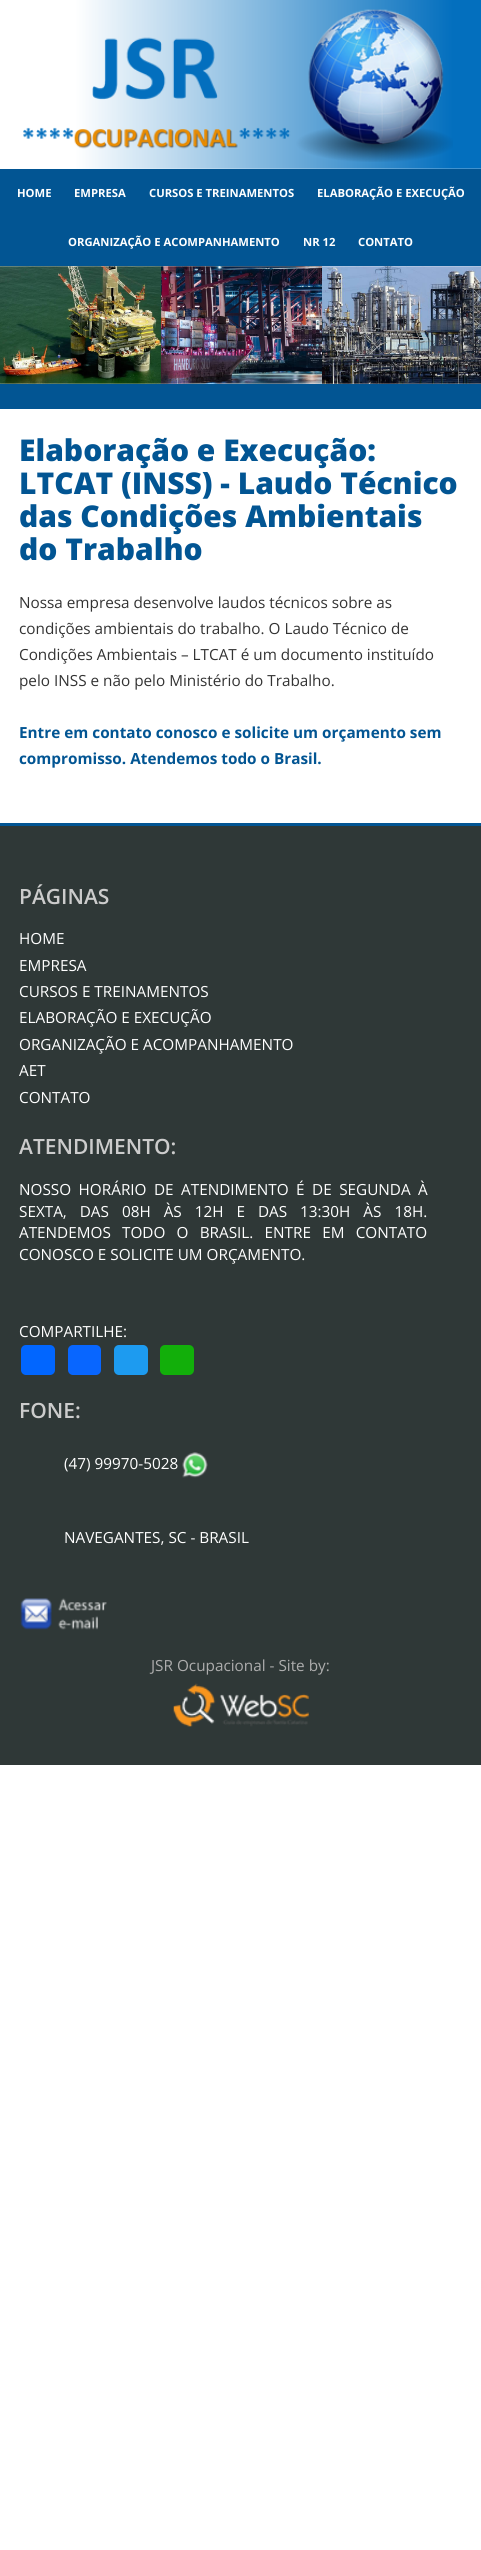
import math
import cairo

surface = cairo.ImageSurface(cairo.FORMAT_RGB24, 481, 2550)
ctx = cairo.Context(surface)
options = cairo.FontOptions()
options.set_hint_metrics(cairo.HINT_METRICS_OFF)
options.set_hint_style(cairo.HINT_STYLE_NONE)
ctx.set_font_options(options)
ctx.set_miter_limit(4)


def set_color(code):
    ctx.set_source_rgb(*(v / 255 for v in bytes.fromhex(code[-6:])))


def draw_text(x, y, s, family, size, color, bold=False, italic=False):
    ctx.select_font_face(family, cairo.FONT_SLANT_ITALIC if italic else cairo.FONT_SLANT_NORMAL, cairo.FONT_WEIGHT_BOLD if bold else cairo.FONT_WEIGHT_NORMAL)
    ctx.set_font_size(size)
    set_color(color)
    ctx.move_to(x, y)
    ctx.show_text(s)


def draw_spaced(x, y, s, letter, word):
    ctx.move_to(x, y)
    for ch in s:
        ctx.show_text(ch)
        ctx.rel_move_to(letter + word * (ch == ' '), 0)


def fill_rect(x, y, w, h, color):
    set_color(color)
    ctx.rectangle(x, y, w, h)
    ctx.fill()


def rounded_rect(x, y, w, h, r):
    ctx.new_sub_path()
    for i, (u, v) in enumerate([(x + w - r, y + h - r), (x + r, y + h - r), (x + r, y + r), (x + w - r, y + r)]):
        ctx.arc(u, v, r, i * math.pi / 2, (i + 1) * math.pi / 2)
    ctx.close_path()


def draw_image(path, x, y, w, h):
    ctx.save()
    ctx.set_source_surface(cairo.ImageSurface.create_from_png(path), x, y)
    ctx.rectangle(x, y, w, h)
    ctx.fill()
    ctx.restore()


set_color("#ffffff")
ctx.paint()
draw_image("assets/img1.png", 0, 0, 481, 169)
draw_image("assets/img2.png", 23, 9, 430, 153)
fill_rect(0, 169, 481, 97, "#025593")
draw_text(17, 197, "HOME", "Open Sans", 11.25, "#ffffff", bold=True)
draw_text(74, 197, "EMPRESA", "Open Sans", 11.25, "#ffffff", bold=True)
draw_text(149, 197, "CURSOS E TREINAMENTOS", "Open Sans", 11.25, "#ffffff", bold=True)
draw_text(317, 197, "ELABORAÇÃO E EXECUÇÃO", "Open Sans", 11.25, "#ffffff", bold=True)
draw_text(68, 246, "ORGANIZAÇÃO E ACOMPANHAMENTO", "Open Sans", 11.25, "#ffffff", bold=True)
draw_text(303, 246, "NR 12", "Open Sans", 11.25, "#ffffff", bold=True)
draw_text(358, 246, "CONTATO", "Open Sans", 11.25, "#ffffff", bold=True)
draw_image("assets/img3.png", 0, 266, 481, 118)
fill_rect(0, 384, 481, 25, "#025593")
draw_text(19, 461, "Elaboração e Execução:", "Open Sans ExtraBold", 30, "#025593")
draw_text(19, 494, "LTCAT (INSS) - Laudo Técnico", "Open Sans ExtraBold", 30, "#025593")
draw_text(19, 527, "das Condições Ambientais", "Open Sans ExtraBold", 30, "#025593")
draw_text(19, 560, "do Trabalho", "Open Sans ExtraBold", 30, "#025593")
draw_text(19, 608, "Nossa empresa desenvolve laudos técnicos sobre as", "Open Sans", 15.3, "#333333")
draw_text(19, 634, "condições ambientais do trabalho. O Laudo Técnico de", "Open Sans", 15.3, "#333333")
draw_text(19, 660, "Condições Ambientais – LTCAT é um documento instituído", "Open Sans", 15.3, "#333333")
draw_text(19, 686, "pelo INSS e não pelo Ministério do Trabalho.", "Open Sans", 15.3, "#333333")
draw_text(19, 738, "Entre em contato conosco e solicite um orçamento sem", "Open Sans", 15.3, "#025593", bold=True)
draw_text(19, 764, "compromisso. Atendemos todo o Brasil.", "Open Sans", 15.3, "#025593", bold=True)
fill_rect(0, 826, 481, 939, "#2f3837")
fill_rect(0, 823, 481, 3, "#025593")
draw_text(19, 904, "PÁGINAS", "Open Sans SemiBold", 21, "#cccccc")
draw_text(19, 944, "HOME", "Open Sans", 15.3, "#ffffff")
draw_text(19, 971, "EMPRESA", "Open Sans", 15.3, "#ffffff")
draw_text(19, 997, "CURSOS E TREINAMENTOS", "Open Sans", 15.3, "#ffffff")
draw_text(19, 1023, "ELABORAÇÃO E EXECUÇÃO", "Open Sans", 15.3, "#ffffff")
draw_text(19, 1050, "ORGANIZAÇÃO E ACOMPANHAMENTO", "Open Sans", 15.3, "#ffffff")
draw_text(19, 1076, "AET", "Open Sans", 15.3, "#ffffff")
draw_text(19, 1103, "CONTATO", "Open Sans", 15.3, "#ffffff")
draw_text(19, 1154, "ATENDIMENTO:", "Open Sans SemiBold", 21, "#cccccc")
ctx.select_font_face("Open Sans")
ctx.set_font_size(15.3)
set_color("#ffffff")
draw_spaced(19, 1195, "NOSSO HORÁRIO DE ATENDIMENTO É DE SEGUNDA À", 0, 3.5)
draw_spaced(19, 1217, "SEXTA, DAS 08H ÀS 12H E DAS 13:30H ÀS 18H.", 0, 9)
draw_spaced(19, 1238, "ATENDEMOS TODO O BRASIL. ENTRE EM CONTATO", 0, 7.25)
draw_text(19, 1260, "CONOSCO E SOLICITE UM ORÇAMENTO.", "Open Sans", 15.3, "#ffffff")
draw_text(19, 1337, "COMPARTILHE:", "Open Sans", 15.3, "#ffffff")
set_color("#0166ff")
rounded_rect(21, 1345, 34, 30, 5)
ctx.fill()
set_color("#0866ff")
rounded_rect(68, 1345, 33, 30, 5)
ctx.fill()
set_color("#1d9bf0")
rounded_rect(114, 1345, 34, 30, 5)
ctx.fill()
set_color("#12af0a")
rounded_rect(160, 1345, 34, 30, 5)
ctx.fill()
draw_text(19, 1418, "FONE:", "Open Sans SemiBold", 21, "#cccccc")
draw_text(64, 1469, "(47) 99970-5028", "Open Sans", 15.3, "#ffffff")
draw_image("assets/img4.png", 182, 1452, 26, 26)
draw_text(64, 1543, "NAVEGANTES, SC - BRASIL", "Open Sans", 15.3, "#ffffff")
draw_image("assets/img5.png", 20, 1598, 87, 32)
draw_text(151, 1671, "JSR Ocupacional - Site by:", "Open Sans", 15.3, "#adadad")
draw_image("assets/img6.png", 173, 1683, 136, 44)
surface.write_to_png("output.png")
